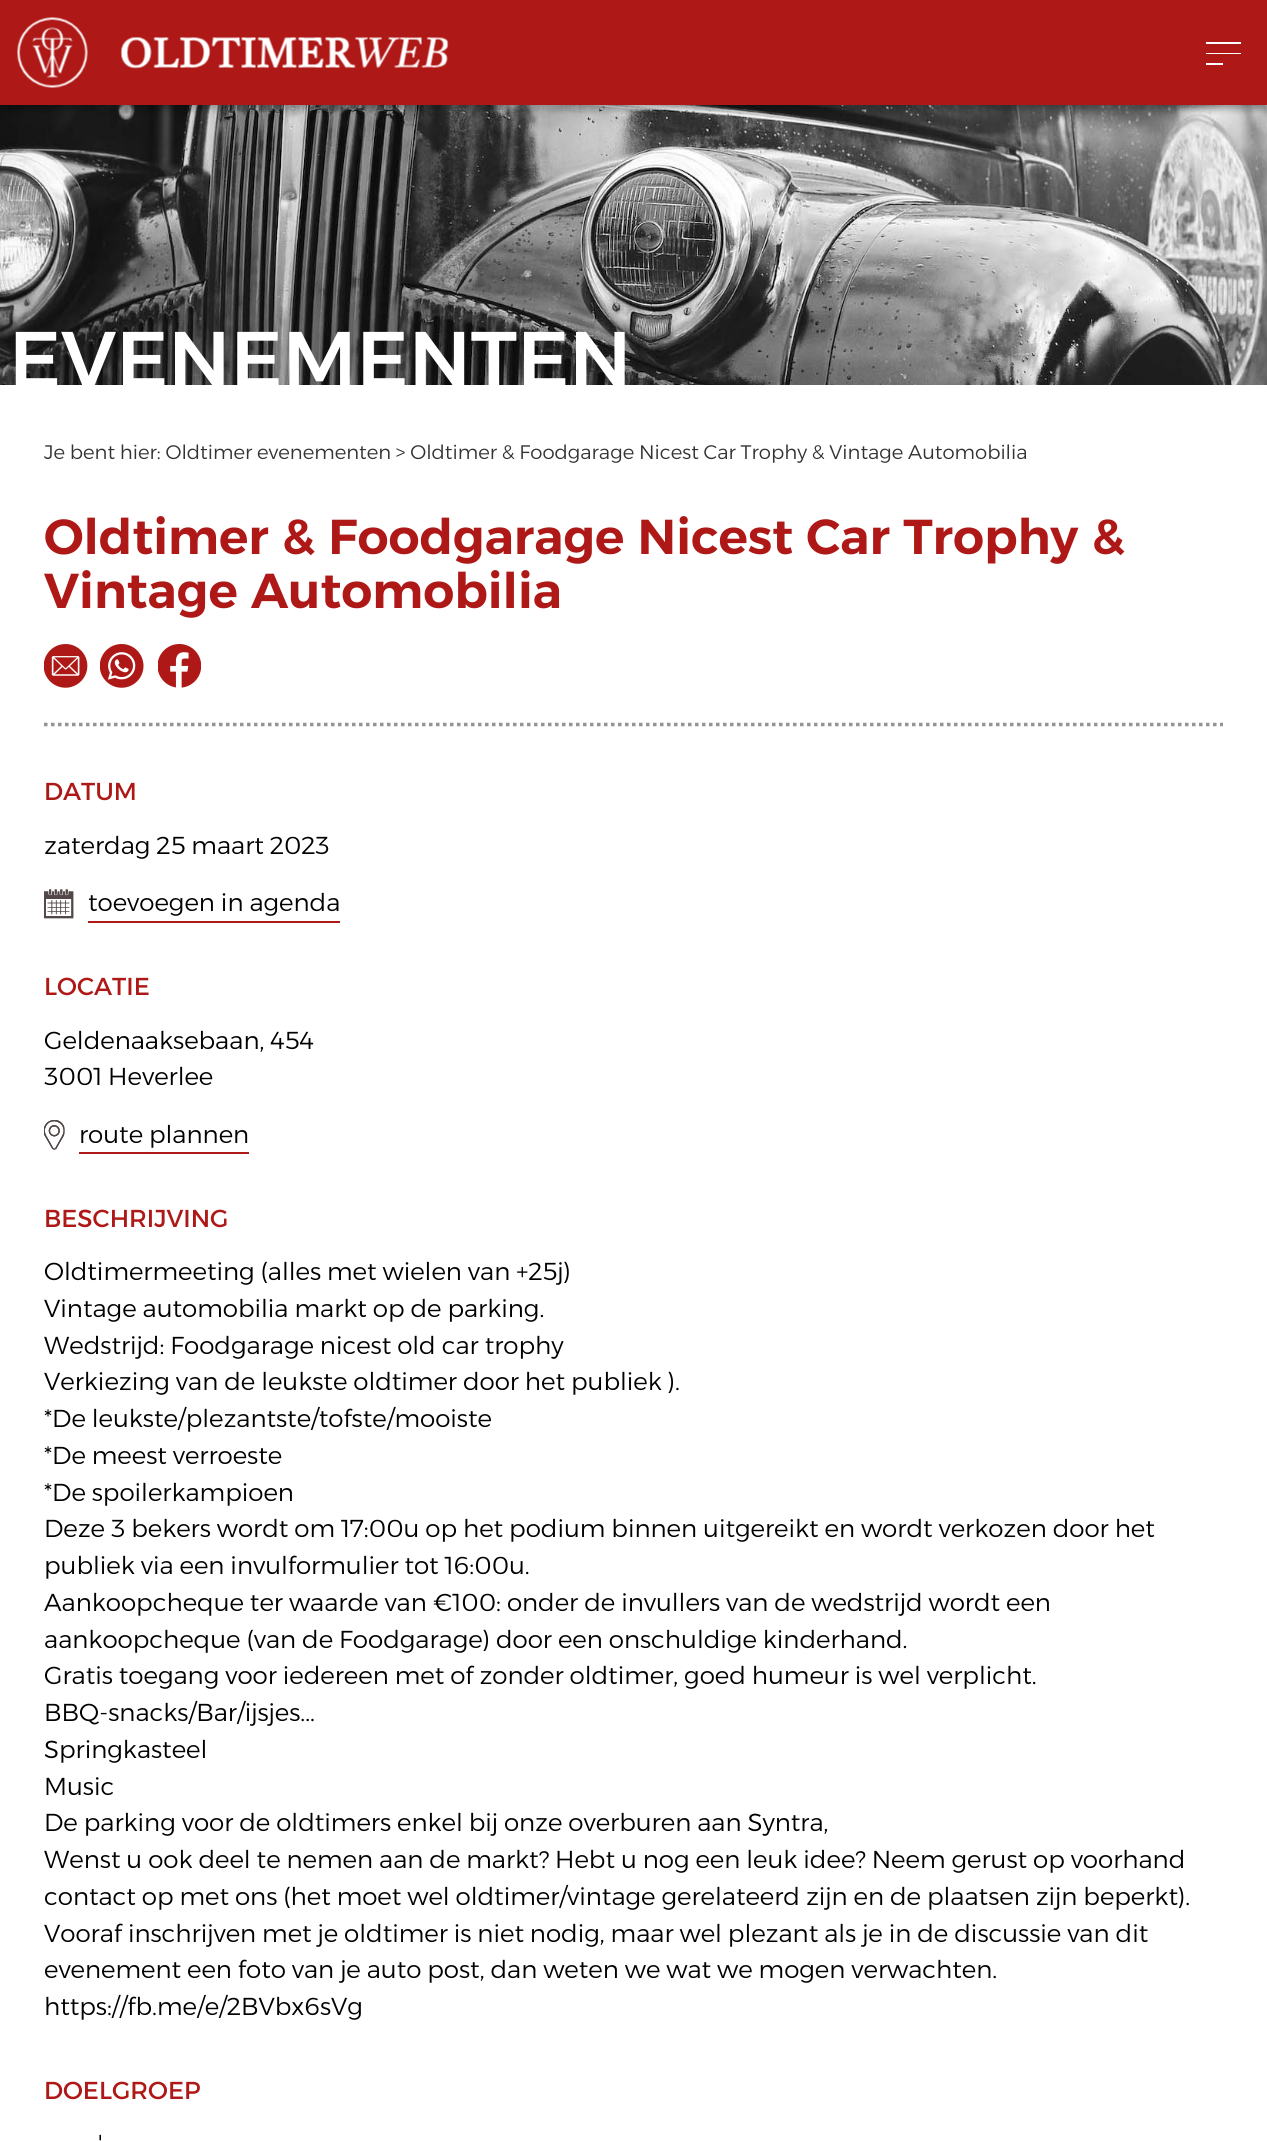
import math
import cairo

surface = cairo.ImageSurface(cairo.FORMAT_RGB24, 1267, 2141)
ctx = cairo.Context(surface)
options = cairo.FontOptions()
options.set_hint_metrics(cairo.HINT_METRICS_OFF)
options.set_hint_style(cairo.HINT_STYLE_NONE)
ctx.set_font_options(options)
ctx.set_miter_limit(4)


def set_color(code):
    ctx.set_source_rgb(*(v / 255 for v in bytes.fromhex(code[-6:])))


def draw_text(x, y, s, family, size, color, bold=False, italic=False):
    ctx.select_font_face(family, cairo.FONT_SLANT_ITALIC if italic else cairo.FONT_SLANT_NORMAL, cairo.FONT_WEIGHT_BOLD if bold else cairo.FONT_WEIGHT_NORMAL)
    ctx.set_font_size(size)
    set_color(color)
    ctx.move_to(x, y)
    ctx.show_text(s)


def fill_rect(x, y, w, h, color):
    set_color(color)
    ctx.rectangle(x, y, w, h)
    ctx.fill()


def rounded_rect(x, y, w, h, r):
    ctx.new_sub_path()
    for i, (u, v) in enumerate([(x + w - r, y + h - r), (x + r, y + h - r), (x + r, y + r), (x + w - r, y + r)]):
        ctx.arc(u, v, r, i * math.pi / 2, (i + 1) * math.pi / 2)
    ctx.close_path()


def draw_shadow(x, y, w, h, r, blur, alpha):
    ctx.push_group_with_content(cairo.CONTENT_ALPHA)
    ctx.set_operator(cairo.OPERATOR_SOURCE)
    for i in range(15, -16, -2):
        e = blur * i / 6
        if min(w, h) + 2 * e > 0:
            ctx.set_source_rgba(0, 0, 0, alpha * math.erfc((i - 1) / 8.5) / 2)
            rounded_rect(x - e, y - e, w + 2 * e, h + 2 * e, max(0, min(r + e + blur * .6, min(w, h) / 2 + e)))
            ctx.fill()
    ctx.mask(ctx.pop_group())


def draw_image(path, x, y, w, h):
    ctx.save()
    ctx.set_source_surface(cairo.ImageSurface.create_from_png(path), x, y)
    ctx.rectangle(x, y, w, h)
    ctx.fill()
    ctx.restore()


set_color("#ffffff")
ctx.paint()
draw_image("assets/img2.png", 0, 105, 1267, 280)
set_color("#000000")
draw_shadow(0, 4, 1267, 105, 0, 3.5, 0.3)
fill_rect(0, 0, 1267, 105, "#ae1917")
draw_image("assets/img1.png", 17, 17, 432, 71)
fill_rect(1206, 42, 35, 2, "#ffffff")
fill_rect(1206, 53, 35, 1, "#ffffff")
fill_rect(1206, 63, 17, 2, "#ffffff")
draw_text(9, 387, "EVENEMENTEN", "Alexandria Medium", 78.75, "#ffffff")
draw_text(44, 459, "Je bent hier: Oldtimer evenementen > Oldtimer & Foodgarage Nicest Car Trophy & Vintage Automobilia", "Alexandria Light", 19.6, "#333333")
ctx.new_path()
ctx.move_to(44, 724.5)
ctx.line_to(1223, 724.5)
set_color("#969393")
ctx.set_line_width(3.5)
ctx.set_dash([3.5, 3.5])
ctx.stroke()
draw_text(44, 554, "Oldtimer & Foodgarage Nicest Car Trophy &", "Alexandria SemiBold", 49, "#ae1917")
draw_text(44, 608, "Vintage Automobilia", "Alexandria SemiBold", 49, "#ae1917")
draw_image("assets/img3.png", 44, 644, 44, 44)
draw_image("assets/img4.png", 100, 644, 44, 44)
draw_image("assets/img5.png", 158, 644, 43, 44)
draw_text(44, 800, "DATUM", "Alexandria", 24.5, "#ae1917")
draw_text(44, 854, "zaterdag 25 maart 2023", "Alexandria Light", 24.5, "#000000")
draw_image("assets/img6.png", 44, 889, 30, 30)
draw_image("assets/img7.png", 44, 889, 30, 30)
draw_text(88, 911, "toevoegen in agenda", "Alexandria Light", 24.5, "#000000")
fill_rect(88, 921, 252, 2, "#ae1917")
draw_text(44, 995, "LOCATIE", "Alexandria", 24.5, "#ae1917")
draw_text(44, 1049, "Geldenaaksebaan, 454", "Alexandria Light", 24.5, "#000000")
draw_text(44, 1085, "3001 Heverlee", "Alexandria Light", 24.5, "#000000")
draw_image("assets/img8.png", 44, 1120, 21, 30)
draw_image("assets/img9.png", 44, 1120, 21, 30)
draw_text(79, 1143, "route plannen", "Alexandria Light", 24.5, "#000000")
fill_rect(79, 1152, 170, 2, "#ae1917")
draw_text(44, 1227, "BESCHRIJVING", "Alexandria", 24.5, "#ae1917")
draw_text(44, 1280, "Oldtimermeeting (alles met wielen van +25j)", "Alexandria Light", 24.5, "#000000")
draw_text(44, 1317, "Vintage automobilia markt op de parking.", "Alexandria Light", 24.5, "#000000")
draw_text(44, 1354, "Wedstrijd: Foodgarage nicest old car trophy", "Alexandria Light", 24.5, "#000000")
draw_text(44, 1390, "Verkiezing van de leukste oldtimer door het publiek ).", "Alexandria Light", 24.5, "#000000")
draw_text(44, 1427, "*De leukste/plezantste/tofste/mooiste", "Alexandria Light", 24.5, "#000000")
draw_text(44, 1464, "*De meest verroeste", "Alexandria Light", 24.5, "#000000")
draw_text(44, 1501, "*De spoilerkampioen", "Alexandria Light", 24.5, "#000000")
draw_text(44, 1537, "Deze 3 bekers wordt om 17:00u op het podium binnen uitgereikt en wordt verkozen door het", "Alexandria Light", 24.5, "#000000")
draw_text(44, 1574, "publiek via een invulformulier tot 16:00u.", "Alexandria Light", 24.5, "#000000")
draw_text(44, 1611, "Aankoopcheque ter waarde van €100: onder de invullers van de wedstrijd wordt een", "Alexandria Light", 24.5, "#000000")
draw_text(44, 1648, "aankoopcheque (van de Foodgarage) door een onschuldige kinderhand.", "Alexandria Light", 24.5, "#000000")
draw_text(44, 1684, "Gratis toegang voor iedereen met of zonder oldtimer, goed humeur is wel verplicht.", "Alexandria Light", 24.5, "#000000")
draw_text(44, 1721, "BBQ-snacks/Bar/ijsjes...", "Alexandria Light", 24.5, "#000000")
draw_text(44, 1758, "Springkasteel", "Alexandria Light", 24.5, "#000000")
draw_text(44, 1795, "Music", "Alexandria Light", 24.5, "#000000")
draw_text(44, 1831, "De parking voor de oldtimers enkel bij onze overburen aan Syntra,", "Alexandria Light", 24.5, "#000000")
draw_text(44, 1868, "Wenst u ook deel te nemen aan de markt? Hebt u nog een leuk idee? Neem gerust op voorhand", "Alexandria Light", 24.5, "#000000")
draw_text(44, 1905, "contact op met ons (het moet wel oldtimer/vintage gerelateerd zijn en de plaatsen zijn beperkt).", "Alexandria Light", 24.5, "#000000")
draw_text(44, 1942, "Vooraf inschrijven met je oldtimer is niet nodig, maar wel plezant als je in de discussie van dit", "Alexandria Light", 24.5, "#000000")
draw_text(44, 1978, "evenement een foto van je auto post, dan weten we wat we mogen verwachten.", "Alexandria Light", 24.5, "#000000")
draw_text(44, 2015, "https://fb.me/e/2BVbx6sVg", "Alexandria Light", 24.5, "#000000")
draw_text(44, 2099, "DOELGROEP", "Alexandria", 24.5, "#ae1917")
draw_text(98, 2152, "'", "Alexandria Light", 24.5, "#000000")
surface.write_to_png("output.png")
